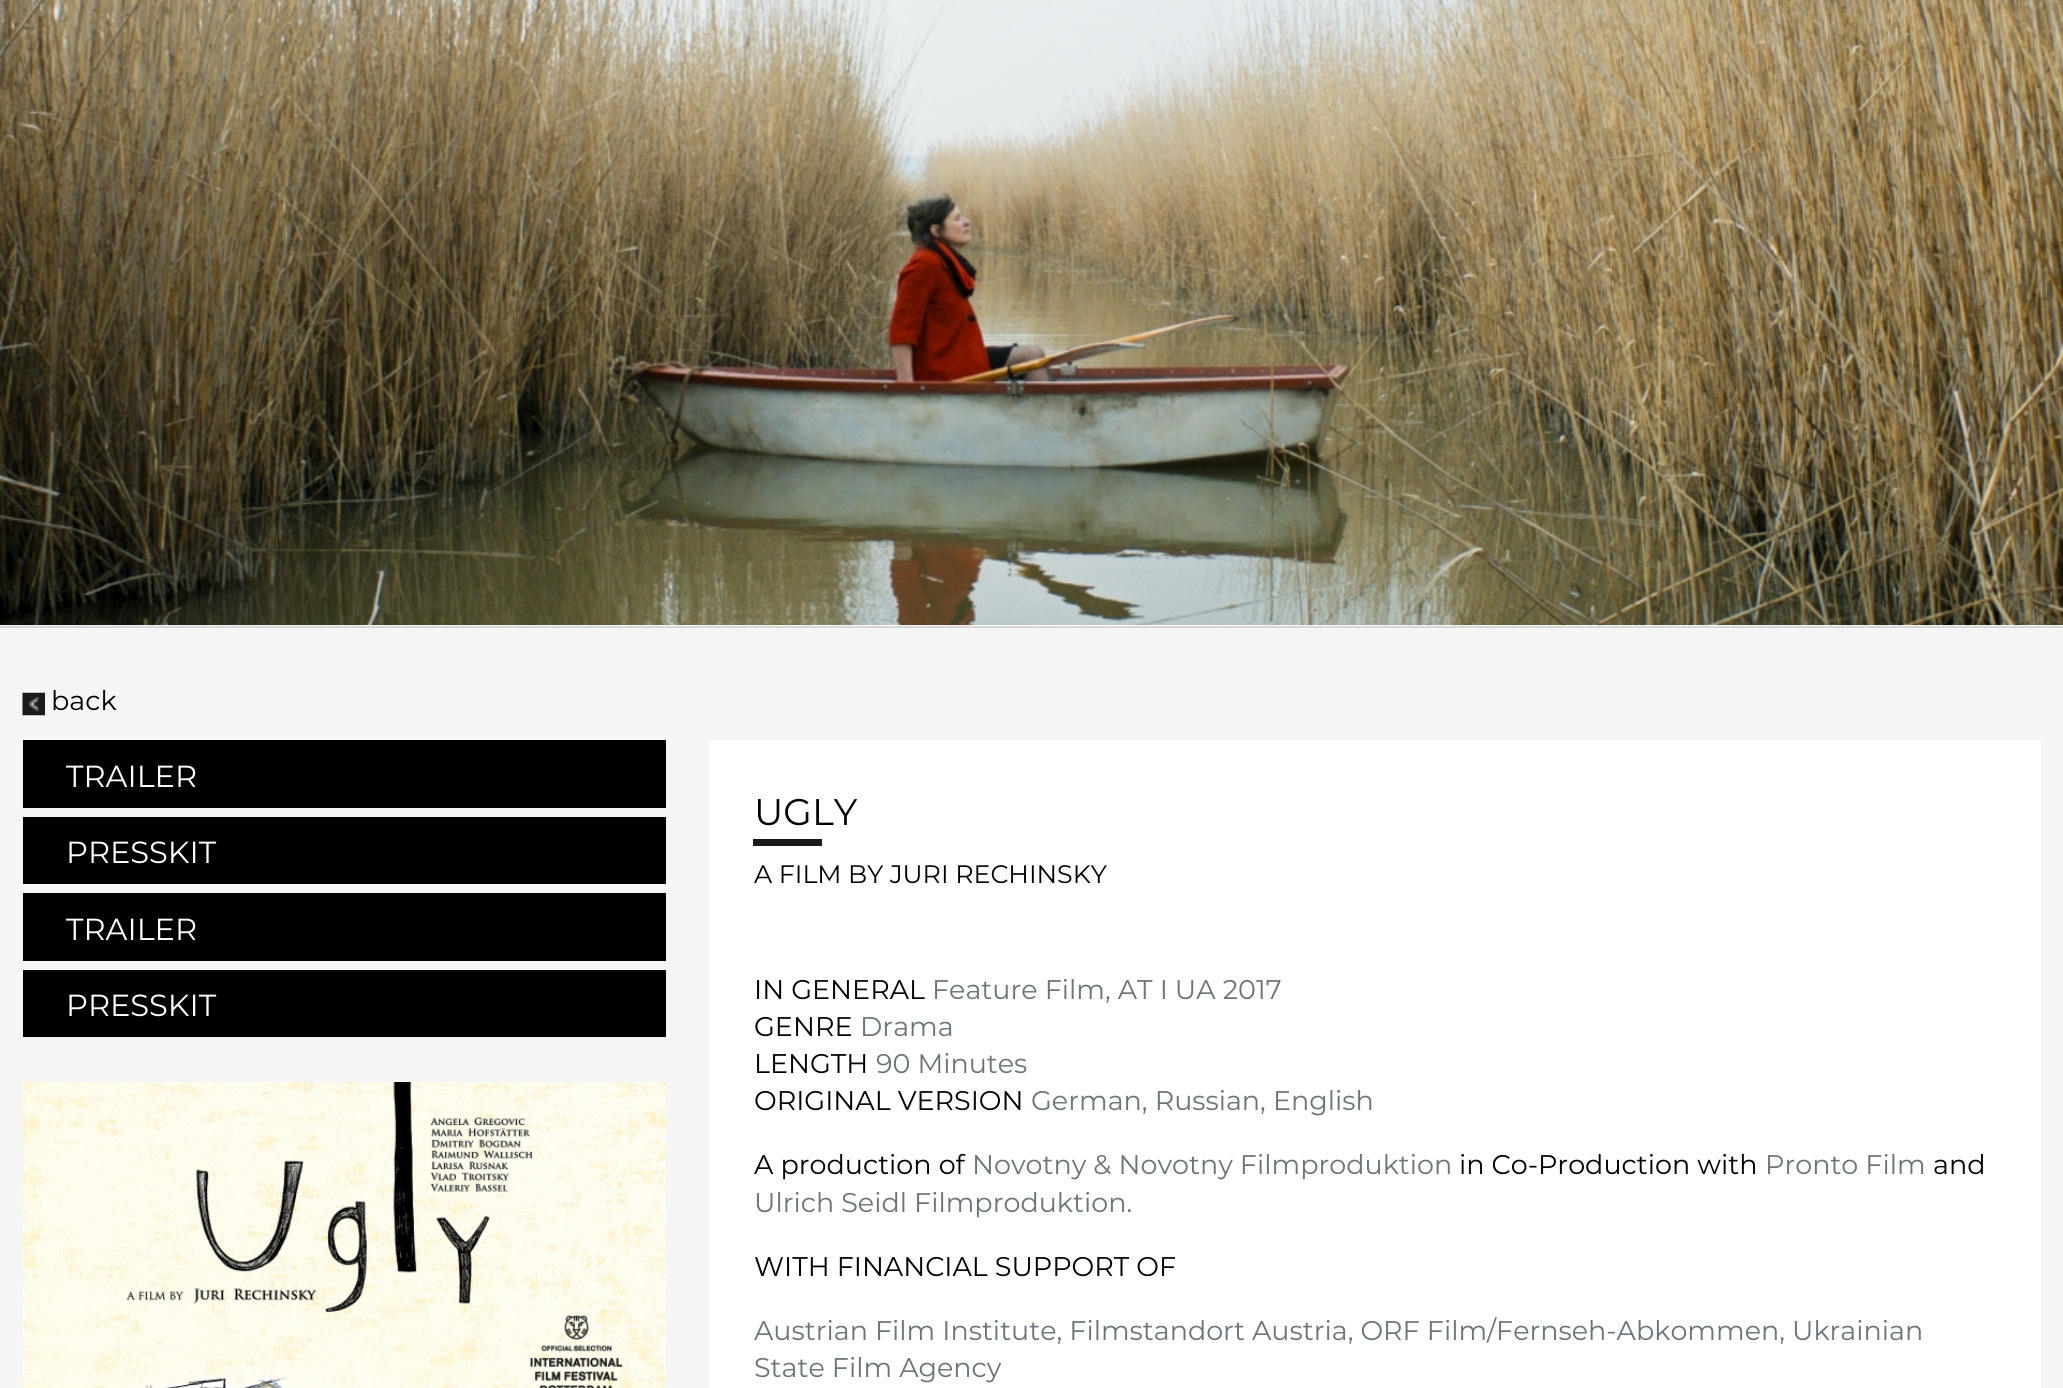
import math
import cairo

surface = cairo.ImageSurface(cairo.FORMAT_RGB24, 2063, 1388)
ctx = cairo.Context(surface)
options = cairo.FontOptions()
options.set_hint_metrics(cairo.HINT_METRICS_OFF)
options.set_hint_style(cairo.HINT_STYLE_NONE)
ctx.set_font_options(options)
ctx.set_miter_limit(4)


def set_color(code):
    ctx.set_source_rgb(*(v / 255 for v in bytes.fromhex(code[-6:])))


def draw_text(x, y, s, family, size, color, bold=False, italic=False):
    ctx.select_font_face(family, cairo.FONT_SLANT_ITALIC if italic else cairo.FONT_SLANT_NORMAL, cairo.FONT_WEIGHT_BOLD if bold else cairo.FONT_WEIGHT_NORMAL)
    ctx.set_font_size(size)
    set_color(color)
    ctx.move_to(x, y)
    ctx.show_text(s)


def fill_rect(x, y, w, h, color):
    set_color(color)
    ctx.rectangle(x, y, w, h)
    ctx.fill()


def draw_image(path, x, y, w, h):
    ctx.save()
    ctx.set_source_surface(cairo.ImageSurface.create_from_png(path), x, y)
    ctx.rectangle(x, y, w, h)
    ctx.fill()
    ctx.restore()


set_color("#f5f5f5")
ctx.paint()
fill_rect(0, 626, 2063, 2, "#d6d7d7")
fill_rect(0, 625, 2063, 1, "#ffffff")
draw_image("assets/img1.png", 0, 0, 2063, 626)
draw_image("assets/img2.png", 22, 692, 23, 24)
draw_text(51, 710, "back", "Montserrat", 27, "#000000")
fill_rect(23, 740, 643, 68, "#000000")
draw_text(66, 787, "TRAILER", "Montserrat", 30.5, "#ffffff")
fill_rect(23, 817, 643, 67, "#000000")
draw_text(66, 863, "PRESSKIT", "Montserrat", 30.5, "#ffffff")
fill_rect(23, 893, 643, 68, "#000000")
draw_text(66, 940, "TRAILER", "Montserrat", 30.5, "#ffffff")
fill_rect(23, 970, 643, 67, "#000000")
draw_text(66, 1016, "PRESSKIT", "Montserrat", 30.5, "#ffffff")
draw_image("assets/img3.png", 22, 1082, 644, 306)
fill_rect(709, 740, 1332, 648, "#ffffff")
draw_text(754, 825, "UGLY", "Montserrat", 37, "#000000")
fill_rect(753, 839, 69, 7, "#1a1a18")
draw_text(754, 883, "A FILM BY JURI RECHINSKY", "Montserrat", 25.3, "#000000")
draw_text(754, 999, "IN GENERAL", "Montserrat", 27, "#000000")
draw_text(932, 999, "Feature Film, AT I UA 2017", "Montserrat", 27, "#6b7478")
draw_text(754, 1036, "GENRE", "Montserrat", 27, "#000000")
draw_text(860, 1036, "Drama", "Montserrat", 27, "#6b7478")
draw_text(754, 1073, "LENGTH", "Montserrat", 27, "#000000")
draw_text(876, 1073, "90 Minutes", "Montserrat", 27, "#6b7478")
draw_text(754, 1110, "ORIGINAL VERSION", "Montserrat", 27, "#000000")
draw_text(1031, 1110, "German, Russian, English", "Montserrat", 27, "#6b7478")
draw_text(754, 1174, "A production of", "Montserrat", 27, "#000000")
draw_text(972, 1174, "Novotny & Novotny Filmproduktion", "Montserrat", 27, "#6b7478")
draw_text(1459, 1174, "in Co-Production with", "Montserrat", 27, "#000000")
draw_text(1765, 1174, "Pronto Film", "Montserrat", 27, "#6b7478")
draw_text(1933, 1174, "and", "Montserrat", 27, "#000000")
draw_text(754, 1212, "Ulrich Seidl Filmproduktion.", "Montserrat", 27, "#6b7478")
draw_text(754, 1276, "WITH FINANCIAL SUPPORT OF", "Montserrat", 27, "#000000")
draw_text(754, 1340, "Austrian Film Institute, Filmstandort Austria, ORF Film/Fernseh-Abkommen, Ukrainian", "Montserrat", 27, "#6b7478")
draw_text(754, 1377, "State Film Agency", "Montserrat", 27, "#6b7478")
surface.write_to_png("output.png")
